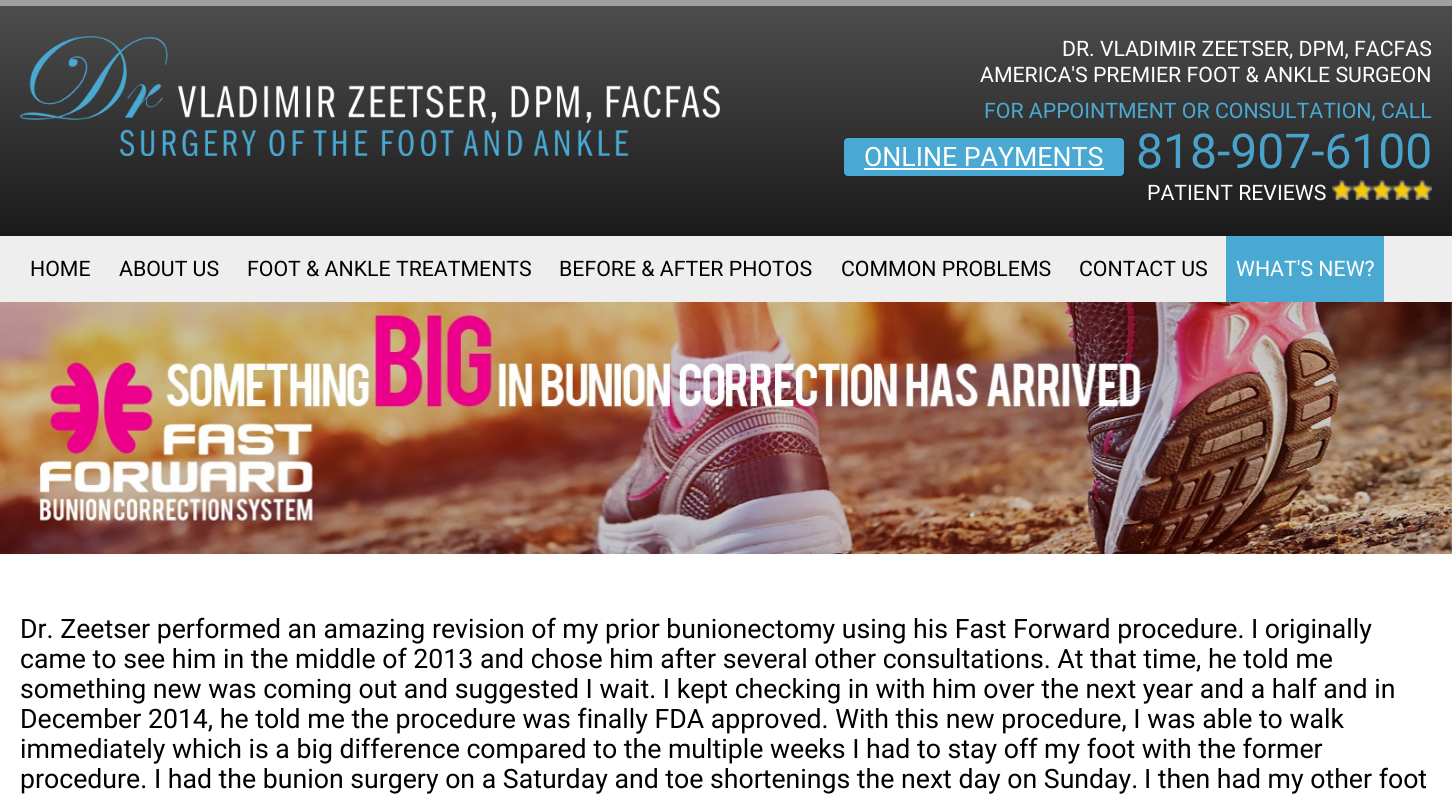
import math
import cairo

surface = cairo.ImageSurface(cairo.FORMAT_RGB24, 1452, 800)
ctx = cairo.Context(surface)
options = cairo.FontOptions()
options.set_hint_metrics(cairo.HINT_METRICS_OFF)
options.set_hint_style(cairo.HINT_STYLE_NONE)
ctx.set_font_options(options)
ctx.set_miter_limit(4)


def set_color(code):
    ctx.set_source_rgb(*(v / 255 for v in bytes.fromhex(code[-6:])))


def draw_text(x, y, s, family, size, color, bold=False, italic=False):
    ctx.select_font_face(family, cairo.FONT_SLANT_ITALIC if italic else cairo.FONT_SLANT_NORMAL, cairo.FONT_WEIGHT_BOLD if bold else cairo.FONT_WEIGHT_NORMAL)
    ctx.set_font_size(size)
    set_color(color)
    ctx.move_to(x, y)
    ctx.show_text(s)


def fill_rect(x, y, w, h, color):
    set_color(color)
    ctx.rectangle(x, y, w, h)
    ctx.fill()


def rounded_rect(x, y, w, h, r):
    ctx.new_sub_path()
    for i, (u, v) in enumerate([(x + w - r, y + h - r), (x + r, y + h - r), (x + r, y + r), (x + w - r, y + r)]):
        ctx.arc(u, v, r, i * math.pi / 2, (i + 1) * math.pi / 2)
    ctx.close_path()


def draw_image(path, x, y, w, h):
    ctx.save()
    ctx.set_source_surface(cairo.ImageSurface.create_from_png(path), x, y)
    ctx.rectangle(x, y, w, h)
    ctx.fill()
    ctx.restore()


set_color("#ffffff")
ctx.paint()
fill_rect(0, 0, 1452, 6, "#9f9f9f")
gradient = cairo.LinearGradient(0, 6, 0, 236)
gradient.add_color_stop_rgba(0, 0.302, 0.302, 0.302, 1)
gradient.add_color_stop_rgba(1, 0.102, 0.102, 0.102, 1)
ctx.set_source(gradient)
ctx.rectangle(0, 6, 1452, 230)
ctx.fill()
draw_image("assets/img1.png", 20, 36, 700, 120)
draw_text(1062, 56, "DR. VLADIMIR ZEETSER, DPM, FACFAS", "Roboto", 21.3, "#ffffff")
draw_text(980, 82, "AMERICA'S PREMIER FOOT & ANKLE SURGEON", "Roboto", 21.3, "#ffffff")
draw_text(984, 118, "FOR APPOINTMENT OR CONSULTATION, CALL", "Roboto", 21.3, "#4aa9d2")
rounded_rect(844, 138, 280, 38, 4)
ctx.fill()
draw_text(864, 166, "ONLINE PAYMENTS", "Roboto", 26.67, "#ffffff")
fill_rect(864, 168, 240, 2, "#ffffff")
draw_text(1136, 168, "818-907-6100", "Roboto", 48, "#48a2cb")
draw_text(1147, 200, "PATIENT REVIEWS", "Roboto", 21.3, "#ffffff")
draw_image("assets/img2.png", 1332, 180, 100, 20)
fill_rect(0, 236, 1452, 66, "#eeeeee")
draw_text(30, 276, "HOME", "Roboto", 21.3, "#000000")
draw_text(119, 276, "ABOUT US", "Roboto", 21.3, "#000000")
draw_text(247, 276, "FOOT & ANKLE TREATMENTS", "Roboto", 21.3, "#000000")
draw_text(559, 276, "BEFORE & AFTER PHOTOS", "Roboto", 21.3, "#000000")
draw_text(841, 276, "COMMON PROBLEMS", "Roboto", 21.3, "#000000")
draw_text(1079, 276, "CONTACT US", "Roboto", 21.3, "#000000")
fill_rect(1226, 236, 158, 66, "#4aa9d2")
draw_text(1236, 276, "WHAT'S NEW?", "Roboto", 21.3, "#ffffff")
draw_image("assets/img3.png", 0, 302, 1452, 252)
draw_text(20, 638, "Dr. Zeetser performed an amazing revision of my prior bunionectomy using his Fast Forward procedure.", "Roboto", 26.67, "#000000")
draw_text(1251, 638, "I originally", "Roboto", 26.67, "#000000")
draw_text(20, 668, "came to see him in the middle of 2013 and chose him after several other consultations. At that time, he told me", "Roboto", 26.67, "#000000")
draw_text(20, 698, "something new was coming out and suggested I wait. I kept checking in with him over the next year and a half and in", "Roboto", 26.67, "#000000")
draw_text(20, 728, "December 2014, he told me the procedure was finally FDA approved. With this new procedure, I was able to walk", "Roboto", 26.67, "#000000")
draw_text(20, 758, "immediately which is a big difference compared to the multiple weeks I had to stay off my foot with the former", "Roboto", 26.67, "#000000")
draw_text(20, 788, "procedure. I had the bunion surgery on a Saturday and toe shortenings the next day on Sunday.", "Roboto", 26.67, "#000000")
draw_text(1144, 788, "I then had my other foot", "Roboto", 26.67, "#000000")
surface.write_to_png("output.png")
